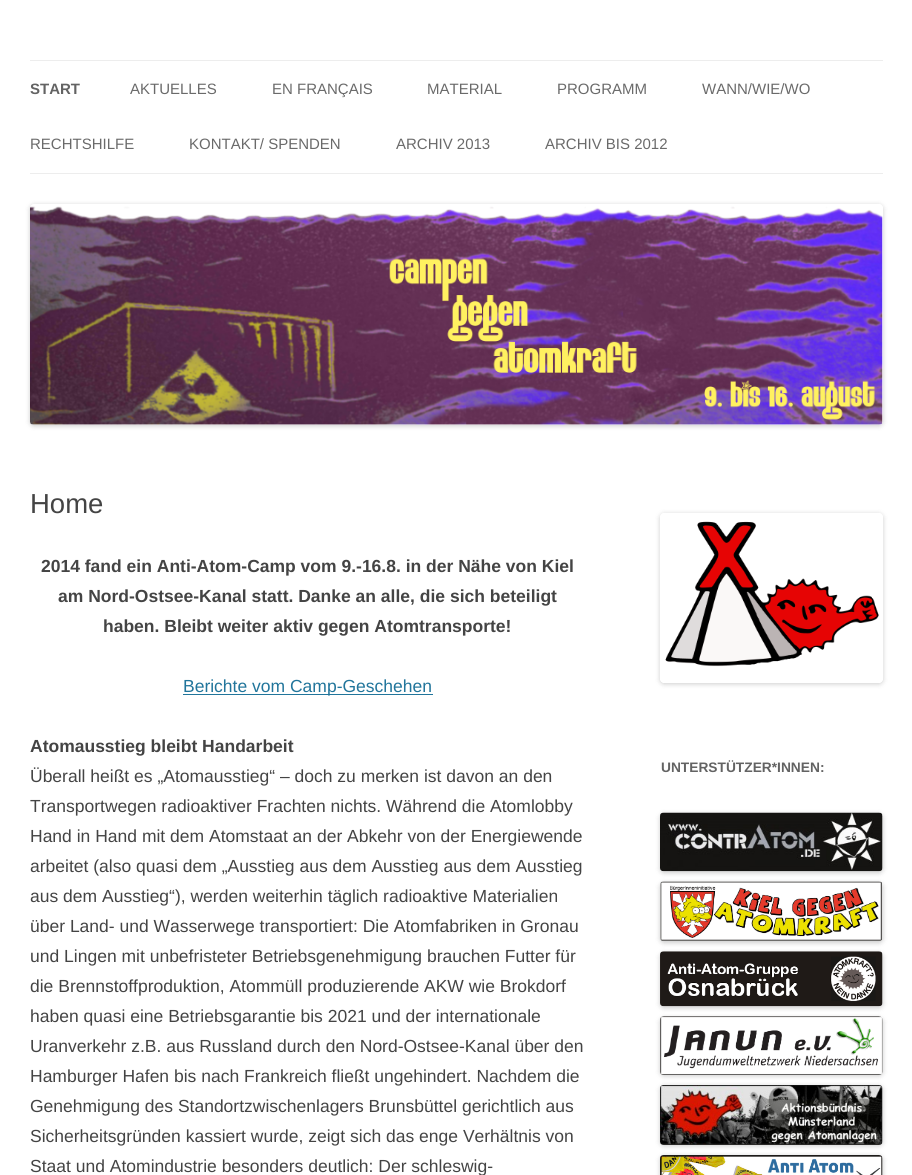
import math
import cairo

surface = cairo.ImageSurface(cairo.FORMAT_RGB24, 912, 1175)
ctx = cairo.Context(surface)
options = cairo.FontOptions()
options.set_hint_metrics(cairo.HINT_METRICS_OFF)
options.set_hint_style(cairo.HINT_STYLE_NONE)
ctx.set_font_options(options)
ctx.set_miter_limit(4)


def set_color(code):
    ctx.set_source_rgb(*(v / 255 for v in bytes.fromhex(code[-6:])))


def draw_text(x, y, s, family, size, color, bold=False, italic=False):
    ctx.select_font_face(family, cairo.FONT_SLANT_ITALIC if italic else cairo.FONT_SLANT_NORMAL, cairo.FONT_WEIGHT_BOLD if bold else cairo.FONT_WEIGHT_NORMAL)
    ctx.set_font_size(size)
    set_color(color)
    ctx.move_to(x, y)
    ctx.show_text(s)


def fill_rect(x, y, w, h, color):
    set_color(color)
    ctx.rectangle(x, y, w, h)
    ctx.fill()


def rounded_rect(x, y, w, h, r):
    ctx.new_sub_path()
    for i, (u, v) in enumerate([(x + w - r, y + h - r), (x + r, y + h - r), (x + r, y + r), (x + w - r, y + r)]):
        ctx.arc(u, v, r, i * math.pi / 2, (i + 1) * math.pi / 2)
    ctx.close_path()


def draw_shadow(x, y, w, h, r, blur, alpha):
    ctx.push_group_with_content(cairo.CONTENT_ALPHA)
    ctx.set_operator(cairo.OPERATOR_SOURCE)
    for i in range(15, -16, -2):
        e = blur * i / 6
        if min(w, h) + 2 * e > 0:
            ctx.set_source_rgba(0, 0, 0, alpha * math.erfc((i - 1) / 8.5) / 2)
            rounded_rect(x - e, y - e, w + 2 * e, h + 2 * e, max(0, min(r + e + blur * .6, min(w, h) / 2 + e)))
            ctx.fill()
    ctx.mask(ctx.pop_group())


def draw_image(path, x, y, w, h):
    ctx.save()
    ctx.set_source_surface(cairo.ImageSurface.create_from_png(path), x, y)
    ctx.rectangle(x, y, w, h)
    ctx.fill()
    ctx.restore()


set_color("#ffffff")
ctx.paint()
fill_rect(30, 60, 853, 1, "#ededed")
fill_rect(30, 173, 853, 1, "#ededed")
draw_text(30, 94, "START", "Liberation Sans", 15, "#636363", bold=True)
draw_text(130, 94, "AKTUELLES", "Liberation Sans", 15, "#6a6a6a")
draw_text(272, 94, "EN FRANÇAIS", "Liberation Sans", 15, "#6a6a6a")
draw_text(427, 94, "MATERIAL", "Liberation Sans", 15, "#6a6a6a")
draw_text(557, 94, "PROGRAMM", "Liberation Sans", 15, "#6a6a6a")
draw_text(702, 94, "WANN/WIE/WO", "Liberation Sans", 15, "#6a6a6a")
draw_text(30, 149, "RECHTSHILFE", "Liberation Sans", 15, "#6a6a6a")
draw_text(189, 149, "KONTAKT/ SPENDEN", "Liberation Sans", 15, "#6a6a6a")
draw_text(396, 149, "ARCHIV 2013", "Liberation Sans", 15, "#6a6a6a")
draw_text(545, 149, "ARCHIV BIS 2012", "Liberation Sans", 15, "#6a6a6a")
ctx.save()
ctx.set_fill_rule(cairo.FILL_RULE_EVEN_ODD)
ctx.new_path()
ctx.move_to(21, 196)
ctx.line_to(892, 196)
ctx.line_to(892, 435)
ctx.line_to(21, 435)
ctx.close_path()
ctx.move_to(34, 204)
ctx.line_to(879, 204)
ctx.curve_to(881, 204, 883, 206, 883, 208)
ctx.line_to(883, 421)
ctx.curve_to(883, 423, 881, 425, 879, 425)
ctx.line_to(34, 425)
ctx.curve_to(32, 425, 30, 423, 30, 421)
ctx.line_to(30, 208)
ctx.curve_to(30, 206, 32, 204, 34, 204)
ctx.close_path()
ctx.clip()
set_color("#000000")
draw_shadow(30, 205, 853, 221, 4, 2.5, 0.2)
ctx.restore()
draw_image("assets/img1.png", 30, 206, 853, 219)
draw_text(30, 513, "Home", "Liberation Sans", 27.5, "#444444")
draw_text(41, 572, "2014 fand ein Anti-Atom-Camp vom 9.-16.8. in der Nähe von Kiel", "Liberation Sans", 17.5, "#444444", bold=True)
draw_text(58, 602, "am Nord-Ostsee-Kanal statt. Danke an alle, die sich beteiligt", "Liberation Sans", 17.5, "#444444", bold=True)
draw_text(103, 632, "haben. Bleibt weiter aktiv gegen Atomtransporte!", "Liberation Sans", 17.5, "#444444", bold=True)
fill_rect(183, 694, 250, 1, "#21759b")
draw_text(183, 692, "Berichte vom Camp-Geschehen", "Liberation Sans", 17.5, "#21759b")
draw_text(30, 752, "Atomausstieg bleibt Handarbeit", "Liberation Sans", 17.5, "#444444", bold=True)
draw_text(30, 782, "Überall heißt es „Atomausstieg“ – doch zu merken ist davon an den", "Liberation Sans", 17.5, "#444444")
draw_text(30, 812, "Transportwegen radioaktiver Frachten nichts. Während die Atomlobby", "Liberation Sans", 17.5, "#444444")
draw_text(30, 842, "Hand in Hand mit dem Atomstaat an der Abkehr von der Energiewende", "Liberation Sans", 17.5, "#444444")
draw_text(30, 872, "arbeitet (also quasi dem „Ausstieg aus dem Ausstieg aus dem Ausstieg", "Liberation Sans", 17.5, "#444444")
draw_text(30, 902, "aus dem Ausstieg“), werden weiterhin täglich radioaktive Materialien", "Liberation Sans", 17.5, "#444444")
draw_text(30, 932, "über Land- und Wasserwege transportiert: Die Atomfabriken in Gronau", "Liberation Sans", 17.5, "#444444")
draw_text(30, 962, "und Lingen mit unbefristeter Betriebsgenehmigung brauchen Futter für", "Liberation Sans", 17.5, "#444444")
draw_text(30, 992, "die Brennstoffproduktion, Atommüll produzierende AKW wie Brokdorf", "Liberation Sans", 17.5, "#444444")
draw_text(30, 1022, "haben quasi eine Betriebsgarantie bis 2021 und der internationale", "Liberation Sans", 17.5, "#444444")
draw_text(30, 1052, "Uranverkehr z.B. aus Russland durch den Nord-Ostsee-Kanal über den", "Liberation Sans", 17.5, "#444444")
draw_text(30, 1082, "Hamburger Hafen bis nach Frankreich fließt ungehindert. Nachdem die", "Liberation Sans", 17.5, "#444444")
draw_text(30, 1112, "Genehmigung des Standortzwischenlagers Brunsbüttel gerichtlich aus", "Liberation Sans", 17.5, "#444444")
draw_text(30, 1142, "Sicherheitsgründen kassiert wurde, zeigt sich das enge Verhältnis von", "Liberation Sans", 17.5, "#444444")
draw_text(30, 1172, "Staat und Atomindustrie besonders deutlich: Der schleswig-", "Liberation Sans", 17.5, "#444444")
ctx.save()
ctx.set_fill_rule(cairo.FILL_RULE_EVEN_ODD)
ctx.new_path()
ctx.move_to(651, 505)
ctx.line_to(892, 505)
ctx.line_to(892, 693)
ctx.line_to(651, 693)
ctx.close_path()
ctx.move_to(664, 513)
ctx.line_to(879, 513)
ctx.curve_to(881, 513, 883, 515, 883, 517)
ctx.line_to(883, 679)
ctx.curve_to(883, 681, 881, 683, 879, 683)
ctx.line_to(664, 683)
ctx.curve_to(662, 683, 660, 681, 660, 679)
ctx.line_to(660, 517)
ctx.curve_to(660, 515, 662, 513, 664, 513)
ctx.close_path()
ctx.clip()
set_color("#000000")
draw_shadow(660, 514, 223, 170, 4, 2.5, 0.2)
ctx.restore()
draw_image("assets/img2.png", 665, 521, 214, 146)
draw_text(661, 772, "UNTERSTÜTZER*INNEN:", "Liberation Sans", 13.75, "#636363", bold=True)
set_color("#000000")
draw_shadow(660, 814, 223, 59, 4, 2.5, 0.2)
draw_image("assets/img3.png", 660, 812, 223, 60)
draw_shadow(660, 883, 223, 60, 4, 2.5, 0.2)
draw_image("assets/img4.png", 660, 881, 222, 60)
draw_shadow(660, 953, 223, 55, 4, 2.5, 0.2)
draw_image("assets/img5.png", 660, 951, 223, 56)
draw_shadow(660, 1018, 223, 58, 4, 2.5, 0.2)
draw_image("assets/img6.png", 660, 1016, 223, 59)
draw_shadow(660, 1086, 223, 60, 4, 2.5, 0.2)
draw_image("assets/img7.png", 660, 1085, 223, 60)
draw_shadow(660, 1156, 223, 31, 4, 2.5, 0.2)
draw_image("assets/img8.png", 660, 1155, 223, 20)
surface.write_to_png("output.png")
